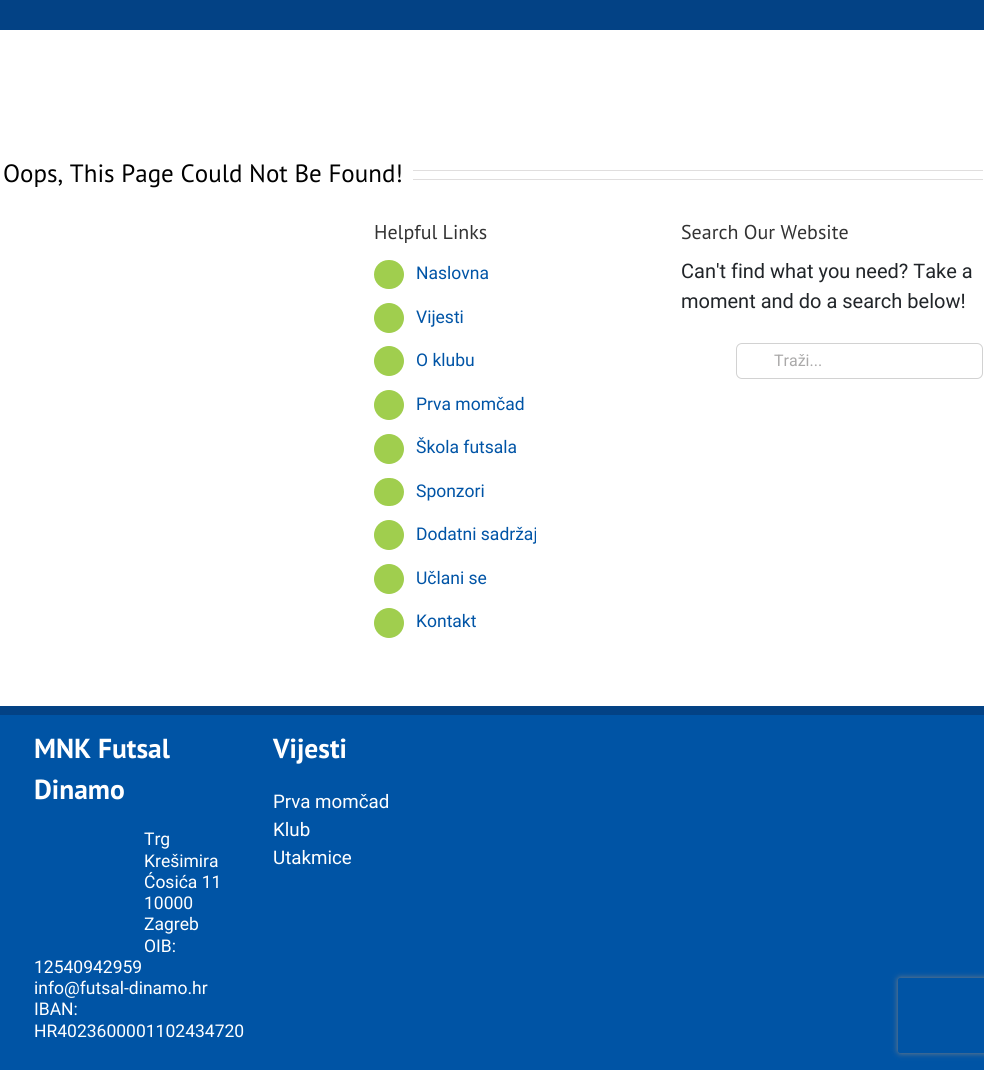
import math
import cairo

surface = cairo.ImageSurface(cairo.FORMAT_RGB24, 984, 1070)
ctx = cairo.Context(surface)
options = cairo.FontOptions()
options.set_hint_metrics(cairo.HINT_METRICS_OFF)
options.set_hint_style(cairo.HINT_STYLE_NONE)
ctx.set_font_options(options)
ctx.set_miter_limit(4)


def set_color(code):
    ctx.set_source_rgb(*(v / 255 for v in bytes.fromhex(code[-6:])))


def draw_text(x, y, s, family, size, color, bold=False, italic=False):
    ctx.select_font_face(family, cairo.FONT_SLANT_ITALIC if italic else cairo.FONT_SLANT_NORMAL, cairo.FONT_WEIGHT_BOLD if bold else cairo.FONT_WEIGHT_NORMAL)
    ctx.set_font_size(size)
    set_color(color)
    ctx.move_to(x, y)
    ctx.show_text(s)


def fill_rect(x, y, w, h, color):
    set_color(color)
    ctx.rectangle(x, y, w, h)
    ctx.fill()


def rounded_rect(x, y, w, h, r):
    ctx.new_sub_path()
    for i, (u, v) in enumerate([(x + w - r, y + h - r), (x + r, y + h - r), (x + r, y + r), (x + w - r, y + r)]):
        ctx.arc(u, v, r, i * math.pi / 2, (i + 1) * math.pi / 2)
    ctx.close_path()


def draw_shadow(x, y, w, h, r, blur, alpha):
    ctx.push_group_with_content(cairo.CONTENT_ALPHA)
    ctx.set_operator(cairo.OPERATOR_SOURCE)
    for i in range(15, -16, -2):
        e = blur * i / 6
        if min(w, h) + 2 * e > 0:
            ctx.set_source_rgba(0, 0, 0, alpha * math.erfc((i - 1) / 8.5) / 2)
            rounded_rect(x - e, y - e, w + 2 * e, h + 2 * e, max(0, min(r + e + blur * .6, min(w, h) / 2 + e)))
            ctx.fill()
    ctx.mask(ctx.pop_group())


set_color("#ffffff")
ctx.paint()
fill_rect(0, 0, 984, 30, "#034285")
draw_text(3, 182, "Oops, This Page Could Not Be Found!", "PT Sans", 25, "#000000")
fill_rect(413, 170, 570, 1, "#e0dede")
fill_rect(413, 179, 570, 1, "#e0dede")
draw_text(374, 239, "Helpful Links", "PT Sans", 20, "#333333")
set_color("#a0ce4e")
rounded_rect(374, 260, 30, 29, 14.5)
ctx.fill()
draw_text(416, 279, "Naslovna", "Roboto", 17.5, "#0054a6")
set_color("#a0ce4e")
ctx.new_path()
ctx.arc(389, 318, 15, 0, 2 * math.pi)
ctx.fill()
draw_text(416, 323, "Vijesti", "Roboto", 17.5, "#0054a6")
set_color("#a0ce4e")
ctx.new_path()
ctx.arc(389, 361, 15, 0, 2 * math.pi)
ctx.fill()
draw_text(416, 366, "O klubu", "Roboto", 17.5, "#0054a6")
set_color("#a0ce4e")
ctx.new_path()
ctx.arc(389, 405, 15, 0, 2 * math.pi)
ctx.fill()
draw_text(416, 410, "Prva momčad", "Roboto", 17.5, "#0054a6")
set_color("#a0ce4e")
ctx.new_path()
ctx.arc(389, 449, 15, 0, 2 * math.pi)
ctx.fill()
draw_text(416, 453, "Škola futsala", "Roboto", 17.5, "#0054a6")
set_color("#a0ce4e")
rounded_rect(374, 478, 30, 28, 14)
ctx.fill()
draw_text(416, 497, "Sponzori", "Roboto", 17.5, "#0054a6")
set_color("#a0ce4e")
ctx.new_path()
ctx.arc(389, 535, 15, 0, 2 * math.pi)
ctx.fill()
draw_text(416, 540, "Dodatni sadržaj", "Roboto", 17.5, "#0054a6")
set_color("#a0ce4e")
ctx.new_path()
ctx.arc(389, 579, 15, 0, 2 * math.pi)
ctx.fill()
draw_text(416, 584, "Učlani se", "Roboto", 17.5, "#0054a6")
set_color("#a0ce4e")
ctx.new_path()
ctx.arc(389, 623, 15, 0, 2 * math.pi)
ctx.fill()
draw_text(416, 627, "Kontakt", "Roboto", 17.5, "#0054a6")
draw_text(681, 239, "Search Our Website", "PT Sans", 20, "#333333")
draw_text(681, 278, "Can't find what you need? Take a", "Roboto", 20, "#212529")
draw_text(681, 308, "moment and do a search below!", "Roboto", 20, "#212529")
rounded_rect(736.5, 343.5, 246, 35, 5.5)
set_color("#d2d2d2")
ctx.set_line_width(1)
ctx.stroke()
draw_text(774, 366, "Traži...", "Roboto", 16, "#aaa9a9")
fill_rect(0, 715, 984, 355, "#0054a5")
fill_rect(0, 706, 984, 9, "#034285")
draw_text(34, 758, "MNK Futsal", "PT Sans", 27.5, "#ffffff", bold=True)
draw_text(34, 799, "Dinamo", "PT Sans", 27.5, "#ffffff", bold=True)
draw_text(144, 845, "Trg", "Roboto", 17.5, "#ffffff")
draw_text(144, 867, "Krešimira", "Roboto", 17.5, "#ffffff")
draw_text(144, 888, "Ćosića 11", "Roboto", 17.5, "#ffffff")
draw_text(144, 909, "10000", "Roboto", 17.5, "#ffffff")
draw_text(144, 930, "Zagreb", "Roboto", 17.5, "#ffffff")
draw_text(144, 952, "OIB:", "Roboto", 17.5, "#ffffff")
draw_text(34, 973, "12540942959", "Roboto", 17.5, "#ffffff")
draw_text(34, 994, "info@futsal-dinamo.hr", "Roboto", 17.5, "#ffffff")
draw_text(34, 1015, "IBAN:", "Roboto", 17.5, "#ffffff")
draw_text(34, 1037, "HR4023600001102434720", "Roboto", 17.5, "#ffffff")
draw_text(273, 758, "Vijesti", "PT Sans", 27.5, "#ffffff", bold=True)
draw_text(273, 808, "Prva momčad", "Roboto", 18.75, "#ffffff")
draw_text(273, 836, "Klub", "Roboto", 18.75, "#ffffff")
draw_text(273, 864, "Utakmice", "Roboto", 18.75, "#ffffff")
ctx.save()
ctx.set_fill_rule(cairo.FILL_RULE_EVEN_ODD)
ctx.new_path()
ctx.move_to(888, 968)
ctx.line_to(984, 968)
ctx.line_to(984, 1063)
ctx.line_to(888, 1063)
ctx.close_path()
ctx.move_to(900.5, 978)
ctx.line_to(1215.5, 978)
ctx.curve_to(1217, 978, 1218, 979, 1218, 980.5)
ctx.line_to(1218, 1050.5)
ctx.curve_to(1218, 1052, 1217, 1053, 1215.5, 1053)
ctx.line_to(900.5, 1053)
ctx.curve_to(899, 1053, 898, 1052, 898, 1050.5)
ctx.line_to(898, 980.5)
ctx.curve_to(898, 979, 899, 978, 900.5, 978)
ctx.close_path()
ctx.clip()
set_color("#808080")
draw_shadow(898, 978, 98, 75, 2.5, 3, 1)
ctx.restore()
surface.write_to_png("output.png")
